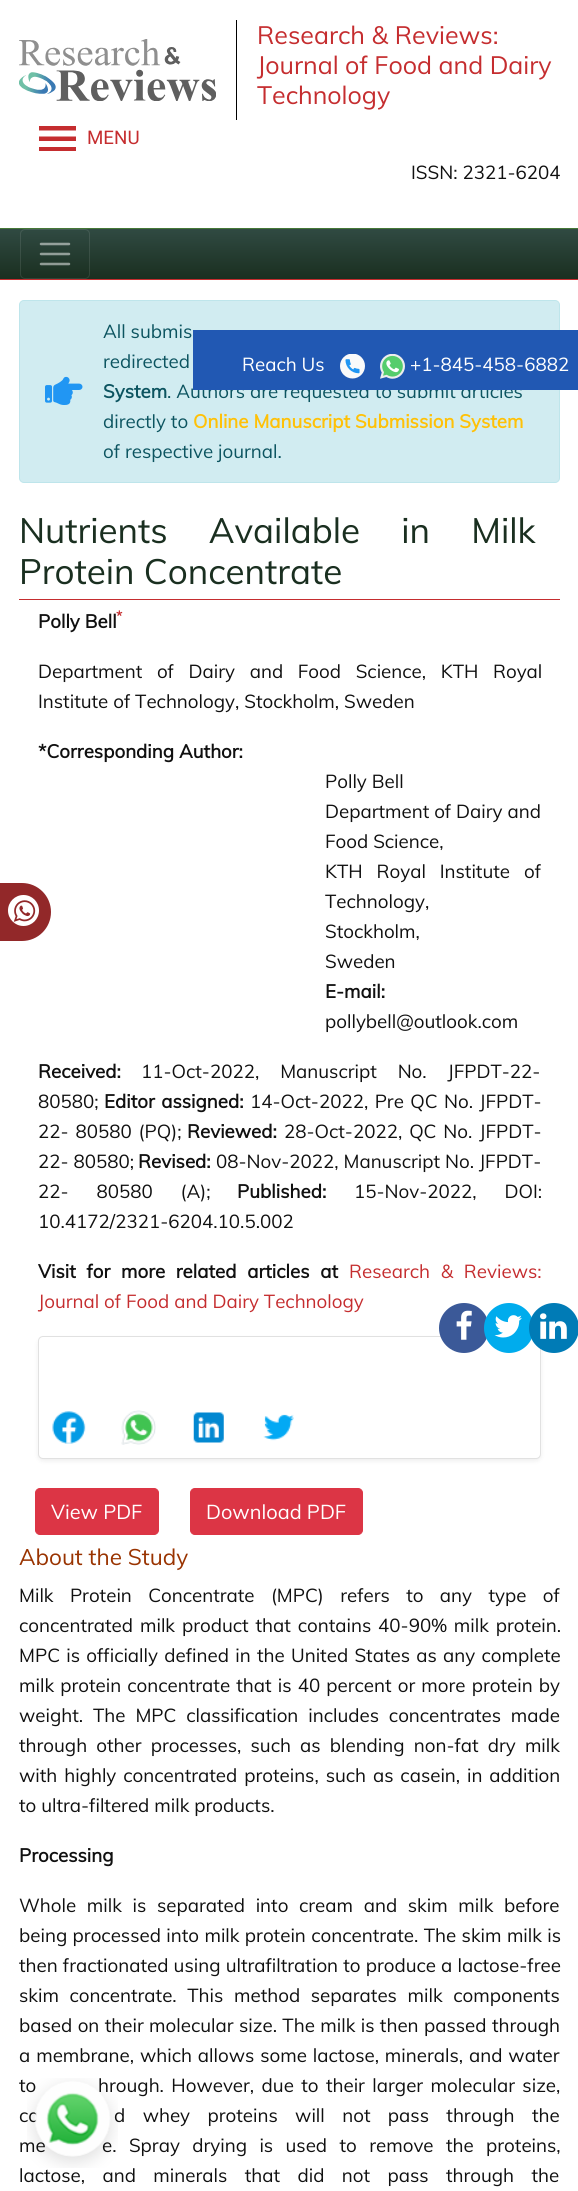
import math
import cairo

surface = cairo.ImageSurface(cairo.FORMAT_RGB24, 578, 2191)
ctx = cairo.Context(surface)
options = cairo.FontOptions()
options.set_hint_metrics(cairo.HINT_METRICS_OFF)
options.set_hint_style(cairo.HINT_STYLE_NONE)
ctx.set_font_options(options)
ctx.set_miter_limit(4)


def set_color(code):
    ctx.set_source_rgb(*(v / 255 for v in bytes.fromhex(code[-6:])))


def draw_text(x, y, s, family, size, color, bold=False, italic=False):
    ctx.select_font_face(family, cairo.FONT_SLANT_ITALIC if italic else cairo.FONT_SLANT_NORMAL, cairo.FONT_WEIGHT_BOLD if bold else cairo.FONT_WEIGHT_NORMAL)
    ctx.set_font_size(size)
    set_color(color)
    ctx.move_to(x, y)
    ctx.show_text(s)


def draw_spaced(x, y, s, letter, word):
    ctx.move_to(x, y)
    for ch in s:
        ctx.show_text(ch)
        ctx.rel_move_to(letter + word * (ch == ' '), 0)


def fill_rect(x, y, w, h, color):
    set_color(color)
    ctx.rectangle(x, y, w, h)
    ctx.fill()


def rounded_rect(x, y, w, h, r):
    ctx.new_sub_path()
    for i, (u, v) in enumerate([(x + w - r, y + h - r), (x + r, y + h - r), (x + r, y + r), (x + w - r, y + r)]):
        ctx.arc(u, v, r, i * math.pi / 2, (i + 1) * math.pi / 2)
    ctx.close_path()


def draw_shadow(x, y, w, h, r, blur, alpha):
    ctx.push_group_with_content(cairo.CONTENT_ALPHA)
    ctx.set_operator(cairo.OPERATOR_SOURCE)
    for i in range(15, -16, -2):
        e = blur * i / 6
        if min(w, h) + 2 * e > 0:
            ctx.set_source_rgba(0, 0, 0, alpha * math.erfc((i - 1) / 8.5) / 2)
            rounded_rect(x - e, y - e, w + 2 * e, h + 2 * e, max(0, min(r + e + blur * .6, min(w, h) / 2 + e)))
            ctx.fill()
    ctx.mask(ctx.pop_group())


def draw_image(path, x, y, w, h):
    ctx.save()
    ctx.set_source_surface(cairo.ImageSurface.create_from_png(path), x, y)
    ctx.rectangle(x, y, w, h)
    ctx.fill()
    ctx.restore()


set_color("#ffffff")
ctx.paint()
draw_image("assets/img1.png", 19, 39, 197, 62)
fill_rect(236, 20, 1, 100, "#000000")
draw_text(257, 44, "Research & Reviews:", "Muli", 25, "#c52d2f")
draw_text(257, 74, "Journal of Food and Dairy", "Muli", 25, "#c52d2f")
draw_text(257, 104, "Technology", "Muli", 25, "#c52d2f")
draw_text(87, 144, "MENU", "Roboto", 18.75, "#c52d2f")
ctx.new_path()
ctx.move_to(39, 151)
ctx.line_to(76, 151)
ctx.line_to(76, 147)
ctx.line_to(39, 147)
ctx.close_path()
ctx.move_to(39, 141)
ctx.line_to(76, 141)
ctx.line_to(76, 136.5)
ctx.line_to(39, 136.5)
ctx.close_path()
ctx.move_to(39, 126)
ctx.line_to(39, 130.5)
ctx.line_to(76, 130.5)
ctx.line_to(76, 126)
ctx.close_path()
ctx.fill()
draw_text(411, 179, "ISSN: 2321-6204", "Muli", 18.75, "#101010")
gradient = cairo.LinearGradient(289, 229, 289, 279)
gradient.add_color_stop_rgba(0, 0.188, 0.29, 0.259, 1)
gradient.add_color_stop_rgba(1, 0.102, 0.184, 0.125, 1)
ctx.set_source(gradient)
ctx.rectangle(0, 229, 578, 50)
ctx.fill()
fill_rect(0, 228, 578, 1, "#467837")
fill_rect(0, 279, 578, 1, "#c52d2f")
rounded_rect(20.5, 229.5, 69, 49, 4.5)
ctx.set_source_rgba(1, 1, 1, 0.1)
ctx.set_line_width(1)
ctx.stroke()
ctx.new_path()
ctx.move_to(41, 244)
ctx.line_to(69, 244)
ctx.move_to(41, 254)
ctx.line_to(69, 254)
ctx.move_to(41, 264)
ctx.line_to(69, 264)
ctx.set_source_rgba(1, 1, 1, 0.5)
ctx.set_line_width(2.5)
ctx.set_line_cap(cairo.LINE_CAP_ROUND)
ctx.stroke()
set_color("#d1ecf1")
rounded_rect(19.5, 300.5, 540, 182, 4.5)
ctx.fill_preserve()
set_color("#bee5eb")
ctx.set_line_width(1)
ctx.set_line_cap(cairo.LINE_CAP_BUTT)
ctx.stroke()
draw_image("assets/img2.png", 45, 376, 38, 29)
draw_text(103, 338, "All submis", "Muli", 18.75, "#0c5460")
draw_text(103, 368, "redirected", "Muli", 18.75, "#0c5460")
draw_text(103, 398, "System", "Muli", 18.75, "#0c5460", bold=True)
draw_text(167, 398, ". Authors are requested to submit articles", "Muli", 18.75, "#0c5460")
draw_text(103, 428, "directly to", "Muli", 18.75, "#0c5460")
draw_text(193, 428, "Online Manuscript Submission System", "Muli", 18.75, "#ffc107", bold=True)
draw_text(103, 458, "of respective journal.", "Muli", 18.75, "#0c5460")
fill_rect(193, 330, 385, 60, "#2158b3")
draw_text(242, 371, "Reach Us", "Muli", 18.75, "#ffffff")
draw_image("assets/img3.png", 340, 354, 25, 25)
draw_image("assets/img4.png", 380, 354, 25, 25)
draw_text(410, 371, "+1-845-458-6882", "Muli", 18.75, "#ffffff")
set_color("#922829")
ctx.new_path()
ctx.move_to(-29, 883)
ctx.line_to(22, 883)
ctx.curve_to(38, 883, 51, 896, 51, 912)
ctx.curve_to(51, 928, 38, 941, 22, 941)
ctx.line_to(-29, 941)
ctx.close_path()
ctx.fill()
set_color("#ffffff")
ctx.arc(23.5, 910.5, 15.5, 0, 2 * math.pi)
ctx.fill()
draw_image("assets/img5.png", 13, 900, 23, 22)
fill_rect(19, 599, 541, 1, "#c52d2f")
ctx.set_font_size(35)
set_color("#1a2f20")
draw_spaced(19, 543, "Nutrients Available in Milk", 0, 32)
draw_text(19, 584, "Protein Concentrate", "Muli", 35, "#1a2f20")
draw_text(116, 621, "*", "Muli", 14, "#c52d2f", bold=True)
draw_text(38, 628, "Polly Bell", "Muli", 18.75, "#101010", bold=True)
ctx.select_font_face("Muli")
draw_spaced(38, 678, "Department of Dairy and Food Science, KTH Royal", 0, 9.75)
draw_text(38, 708, "Institute of Technology, Stockholm, Sweden", "Muli", 18.75, "#101010")
draw_text(38, 758, "*Corresponding Author:", "Muli", 18.75, "#101010", bold=True)
draw_text(325, 788, "Polly Bell", "Muli", 18.75, "#101010")
draw_text(325, 818, "Department of Dairy and", "Muli", 18.75, "#101010")
draw_text(325, 848, "Food Science,", "Muli", 18.75, "#101010")
draw_spaced(325, 878, "KTH Royal Institute of", 0, 9)
draw_text(325, 908, "Technology,", "Muli", 18.75, "#101010")
draw_text(325, 938, "Stockholm,", "Muli", 18.75, "#101010")
draw_text(325, 968, "Sweden", "Muli", 18.75, "#101010")
draw_text(325, 998, "E-mail:", "Muli", 18.75, "#101010", bold=True)
draw_text(325, 1028, "pollybell@outlook.com", "Muli", 18.75, "#101010")
draw_text(38, 1078, "Received:", "Muli", 18.75, "#101010", bold=True)
ctx.select_font_face("Muli")
draw_spaced(141, 1078, "11-Oct-2022, Manuscript No. JFPDT-22-", 0, 16)
draw_text(38, 1108, "80580;", "Muli", 18.75, "#101010")
ctx.select_font_face("Muli", cairo.FONT_SLANT_NORMAL, cairo.FONT_WEIGHT_BOLD)
draw_spaced(104, 1108, "Editor assigned:", 0, 1.5)
ctx.select_font_face("Muli")
draw_spaced(250, 1108, "14-Oct-2022, Pre QC No. JFPDT-", 0, 1.5)
draw_spaced(38, 1138, "22- 80580 (PQ);", 0, 2)
draw_text(187, 1138, "Reviewed:", "Muli", 18.75, "#101010", bold=True)
ctx.select_font_face("Muli")
draw_spaced(284, 1138, "28-Oct-2022, QC No. JFPDT-", 0, 2)
draw_text(38, 1168, "22- 80580;", "Muli", 18.75, "#101010")
draw_text(138, 1168, "Revised:", "Muli", 18.75, "#101010", bold=True)
draw_text(216, 1168, "08-Nov-2022, Manuscript No. JFPDT-", "Muli", 18.75, "#101010")
draw_spaced(38, 1198, "22- 80580 (A);", 0, 23)
draw_text(237, 1198, "Published:", "Muli", 18.75, "#101010", bold=True)
ctx.select_font_face("Muli")
draw_spaced(354, 1198, "15-Nov-2022, DOI:", 0, 23)
draw_text(38, 1228, "10.4172/2321-6204.10.5.002", "Muli", 18.75, "#101010")
ctx.select_font_face("Muli", cairo.FONT_SLANT_NORMAL, cairo.FONT_WEIGHT_BOLD)
draw_spaced(38, 1278, "Visit for more related articles at", 0, 5.75)
ctx.select_font_face("Muli")
set_color("#c52d2f")
draw_spaced(349, 1278, "Research & Reviews:", 0, 5.75)
draw_text(38, 1308, "Journal of Food and Dairy Technology", "Muli", 18.75, "#c52d2f")
set_color("#000000")
draw_shadow(38, 1339, 503, 122, 5, 2.5, 0.07)
set_color("#ffffff")
rounded_rect(38, 1336, 503, 123, 5)
ctx.fill()
rounded_rect(38.5, 1336.5, 502, 122, 4.5)
ctx.set_source_rgba(0, 0, 0, 0.12)
ctx.stroke()
draw_image("assets/img6.png", 52, 1411, 34, 33)
draw_image("assets/img7.png", 121, 1410, 35, 35)
draw_image("assets/img8.png", 193, 1412, 31, 31)
draw_image("assets/img9.png", 263, 1414, 31, 27)
set_color("#dc3545")
rounded_rect(35.5, 1488.5, 123, 46, 4.5)
ctx.fill_preserve()
ctx.stroke()
draw_text(51, 1519, "View PDF", "Muli", 20, "#ffffff")
set_color("#dc3545")
rounded_rect(190.5, 1488.5, 172, 46, 4.5)
ctx.fill_preserve()
ctx.stroke()
draw_text(206, 1519, "Download PDF", "Muli", 20, "#ffffff")
draw_text(19, 1565, "About the Study", "Muli", 22.5, "#993300")
ctx.set_font_size(18.75)
set_color("#101010")
draw_spaced(19, 1602, "Milk Protein Concentrate (MPC) refers to any type of", 0, 11.5)
draw_spaced(19, 1632, "concentrated milk product that contains 40-90% milk protein.", 0, 2)
draw_spaced(19, 1662, "MPC is officially defined in the United States as any complete", 0, 1.4)
draw_spaced(19, 1692, "milk protein concentrate that is 40 percent or more protein by", 0, 1.25)
draw_spaced(19, 1722, "weight. The MPC classification includes concentrates made", 0, 5)
draw_spaced(19, 1752, "through other processes, such as blending non-fat dry milk", 0, 4.25)
draw_spaced(19, 1782, "with highly concentrated proteins, such as casein, in addition", 0, 2)
draw_text(19, 1812, "to ultra-filtered milk products.", "Muli", 18.75, "#101010")
draw_text(19, 1862, "Processing", "Muli", 18.75, "#101010", bold=True)
ctx.select_font_face("Muli")
draw_spaced(19, 1912, "Whole milk is separated into cream and skim milk before", 0, 5.75)
draw_spaced(19, 1942, "being processed into milk protein concentrate. The skim milk is", 0, 0.5)
draw_spaced(19, 1972, "then fractionated using ultrafiltration to produce a lactose-free", 0, 0.25)
draw_spaced(19, 2002, "skim concentrate. This method separates milk components", 0, 5.75)
draw_spaced(19, 2032, "based on their molecular size. The milk is then passed through", 0, 0.5)
draw_spaced(19, 2062, "a membrane, which allows some lactose, minerals, and water", 0, 1)
draw_spaced(19, 2092, "to", 0, 2.5)
draw_spaced(98, 2092, "hrough. However, due to their larger molecular size,", 0, 2.5)
draw_spaced(19, 2122, "ca", 0, 12.5)
draw_spaced(114, 2122, "d whey proteins will not pass through the", 0, 12.5)
draw_spaced(19, 2152, "me", 0, 7.5)
draw_spaced(102, 2152, "e. Spray drying is used to remove the proteins,", 0, 7.5)
draw_spaced(19, 2182, "lactose, and minerals that did not pass through the", 0, 12.5)
set_color("#3b5998")
ctx.new_path()
ctx.arc(464, 1328, 25, 0, 2 * math.pi)
ctx.fill()
draw_image("assets/img10.png", 456, 1310, 16, 30)
set_color("#00aced")
ctx.arc(509, 1328, 25, 0, 2 * math.pi)
ctx.fill()
draw_image("assets/img11.png", 494, 1315, 28, 23)
set_color("#007bb6")
ctx.arc(554, 1328, 25, 0, 2 * math.pi)
ctx.fill()
draw_image("assets/img12.png", 540, 1313, 27, 26)
draw_image("assets/img13.png", 27, 2078, 91, 90)
surface.write_to_png("output.png")
